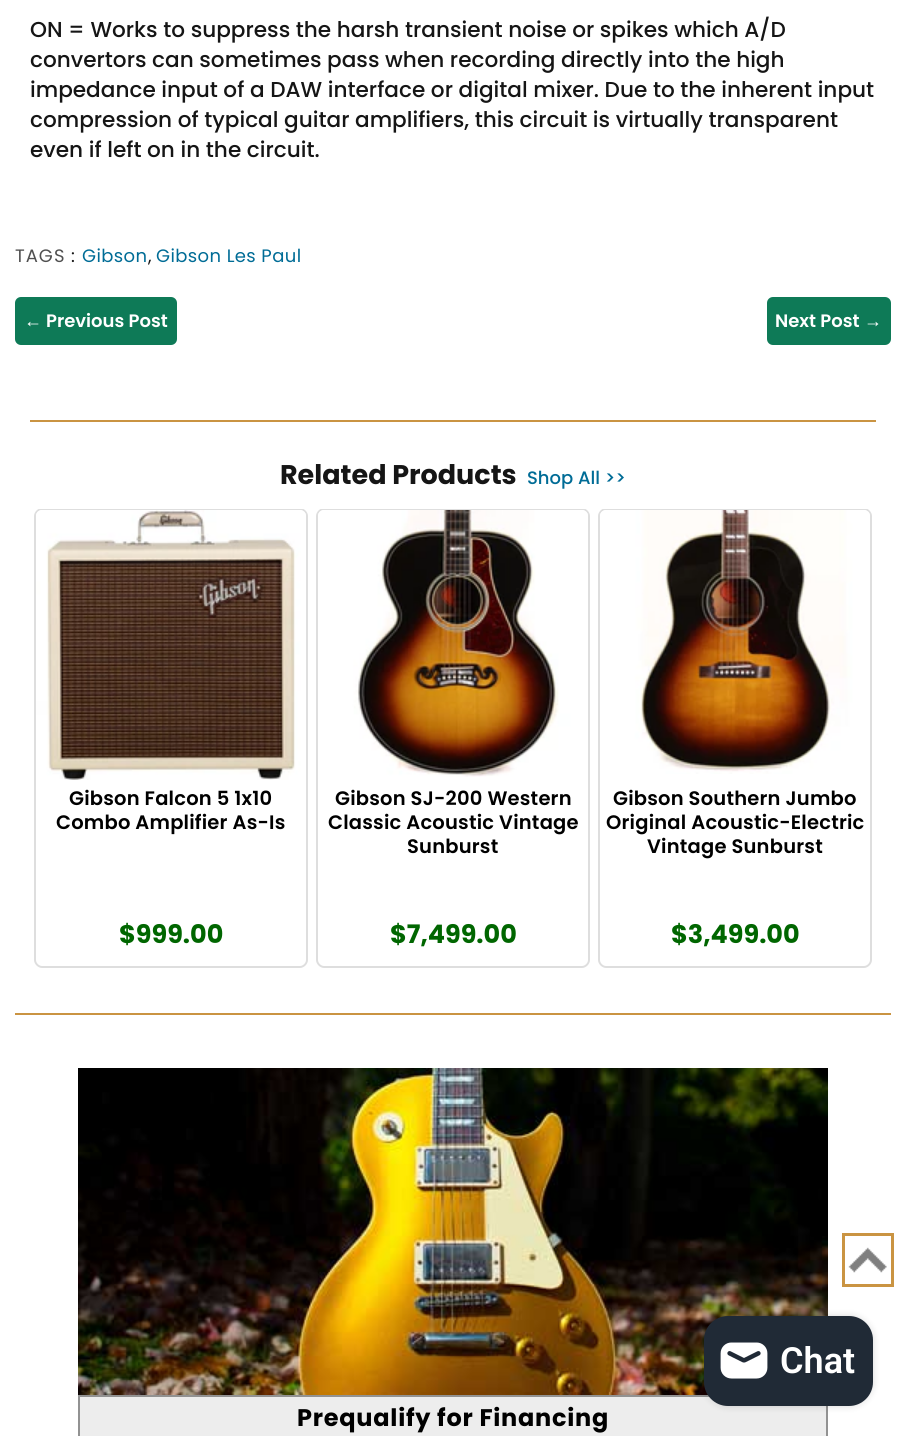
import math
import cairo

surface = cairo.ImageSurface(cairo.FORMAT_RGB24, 906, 1436)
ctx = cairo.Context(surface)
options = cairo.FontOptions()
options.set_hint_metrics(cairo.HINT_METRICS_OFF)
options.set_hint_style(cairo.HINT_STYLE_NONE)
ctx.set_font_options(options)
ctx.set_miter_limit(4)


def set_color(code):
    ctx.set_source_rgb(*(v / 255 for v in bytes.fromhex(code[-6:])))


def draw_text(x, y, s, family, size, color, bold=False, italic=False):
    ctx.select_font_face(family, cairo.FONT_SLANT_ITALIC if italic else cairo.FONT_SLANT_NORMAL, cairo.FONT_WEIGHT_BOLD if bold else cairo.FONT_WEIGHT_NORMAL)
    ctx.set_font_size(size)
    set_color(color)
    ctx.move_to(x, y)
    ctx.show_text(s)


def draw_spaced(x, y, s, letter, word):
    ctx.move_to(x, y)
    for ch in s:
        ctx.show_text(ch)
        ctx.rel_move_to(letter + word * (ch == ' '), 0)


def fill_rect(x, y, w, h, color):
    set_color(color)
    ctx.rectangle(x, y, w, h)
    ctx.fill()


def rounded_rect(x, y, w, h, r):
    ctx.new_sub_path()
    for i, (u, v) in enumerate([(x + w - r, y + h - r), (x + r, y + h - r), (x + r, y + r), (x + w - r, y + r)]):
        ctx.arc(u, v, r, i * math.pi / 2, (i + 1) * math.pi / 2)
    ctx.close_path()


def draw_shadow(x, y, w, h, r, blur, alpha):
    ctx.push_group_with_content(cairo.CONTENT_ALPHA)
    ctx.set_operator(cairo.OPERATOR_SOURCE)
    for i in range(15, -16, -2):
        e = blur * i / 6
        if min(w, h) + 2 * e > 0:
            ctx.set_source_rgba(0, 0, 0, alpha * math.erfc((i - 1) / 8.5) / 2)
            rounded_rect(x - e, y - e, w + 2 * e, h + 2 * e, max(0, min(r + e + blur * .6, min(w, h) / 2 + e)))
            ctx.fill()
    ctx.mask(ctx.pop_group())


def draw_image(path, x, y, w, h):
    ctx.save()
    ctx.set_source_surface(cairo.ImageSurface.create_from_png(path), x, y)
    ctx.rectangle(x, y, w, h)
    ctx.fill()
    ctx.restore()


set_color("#ffffff")
ctx.paint()
draw_text(30, 37, "ON = Works to suppress the harsh transient noise or spikes which A/D", "Poppins Medium", 21.6, "#151515")
draw_text(30, 67, "convertors can sometimes pass when recording directly into the high", "Poppins Medium", 21.6, "#151515")
draw_text(30, 97, "impedance input of a DAW interface or digital mixer. Due to the inherent input", "Poppins Medium", 21.6, "#151515")
draw_text(30, 127, "compression of typical guitar amplifiers, this circuit is virtually transparent", "Poppins Medium", 21.6, "#151515")
draw_text(30, 157, "even if left on in the circuit.", "Poppins Medium", 21.6, "#151515")
ctx.select_font_face("Poppins")
ctx.set_font_size(18)
set_color("#505050")
draw_spaced(15, 262, "TAGS", 1, 0)
draw_text(71, 262, ":", "Poppins", 18, "#151515")
set_color("#006c96")
draw_spaced(82, 262, "Gibson", 0.4, 0)
draw_text(148, 262, ",", "Poppins", 18, "#151515")
set_color("#006c96")
draw_spaced(156, 262, "Gibson Les Paul", 0.4, 0)
set_color("#0e7a57")
rounded_rect(16, 298, 160, 46, 5)
ctx.fill_preserve()
ctx.stroke()
draw_text(24, 327, "←", "Liberation Serif", 18, "#ffffff", bold=True)
draw_text(46, 327, "Previous Post", "Poppins SemiBold", 18, "#ffffff")
set_color("#0e7a57")
rounded_rect(768, 298, 122, 46, 5)
ctx.fill_preserve()
ctx.stroke()
draw_text(775, 327, "Next Post", "Poppins SemiBold", 18, "#ffffff")
draw_text(864, 327, "→", "Liberation Serif", 18, "#ffffff", bold=True)
fill_rect(30, 420, 846, 2, "#ca9442")
draw_text(280, 484, "Related Products", "Poppins", 27, "#151515", bold=True)
draw_text(527, 484, "Shop All >>", "Poppins Medium", 18, "#006c96")
ctx.save()
ctx.rectangle(30, 509, 846, 489)
ctx.clip()
set_color("#dedede")
ctx.set_fill_rule(cairo.FILL_RULE_EVEN_ODD)
ctx.new_path()
ctx.move_to(42, 508)
ctx.line_to(300, 508)
ctx.curve_to(304, 508, 308, 512, 308, 516)
ctx.line_to(308, 780)
ctx.line_to(34, 780)
ctx.line_to(34, 516)
ctx.curve_to(34, 512, 38, 508, 42, 508)
ctx.close_path()
ctx.move_to(42, 510)
ctx.line_to(300, 510)
ctx.curve_to(303, 510, 306, 513, 306, 516)
ctx.line_to(306, 780)
ctx.line_to(36, 780)
ctx.line_to(36, 516)
ctx.curve_to(36, 513, 39, 510, 42, 510)
ctx.close_path()
ctx.fill()
ctx.restore()
draw_image("assets/img1.png", 36, 510, 270, 270)
set_color("#dedede")
ctx.set_fill_rule(cairo.FILL_RULE_EVEN_ODD)
ctx.new_path()
ctx.move_to(34, 780)
ctx.line_to(308, 780)
ctx.line_to(308, 960)
ctx.curve_to(308, 964, 304, 968, 300, 968)
ctx.line_to(42, 968)
ctx.curve_to(38, 968, 34, 964, 34, 960)
ctx.close_path()
ctx.move_to(36, 780)
ctx.line_to(306, 780)
ctx.line_to(306, 960)
ctx.curve_to(306, 963, 303, 966, 300, 966)
ctx.line_to(42, 966)
ctx.curve_to(39, 966, 36, 963, 36, 960)
ctx.close_path()
ctx.fill()
ctx.select_font_face("Poppins SemiBold")
ctx.set_font_size(19.5)
set_color("#000000")
draw_spaced(69, 805, "Gibson Falcon 5 1x10", 0.2, 0)
draw_spaced(56, 829, "Combo Amplifier As-Is", 0.2, 0)
draw_text(119, 943, "$999.00", "Poppins", 25.5, "#006600", bold=True)
ctx.save()
ctx.set_fill_rule(cairo.FILL_RULE_WINDING)
ctx.rectangle(30, 509, 846, 489)
ctx.clip()
set_color("#dedede")
ctx.set_fill_rule(cairo.FILL_RULE_EVEN_ODD)
ctx.new_path()
ctx.move_to(324, 508)
ctx.line_to(582, 508)
ctx.curve_to(586, 508, 590, 512, 590, 516)
ctx.line_to(590, 780)
ctx.line_to(316, 780)
ctx.line_to(316, 516)
ctx.curve_to(316, 512, 320, 508, 324, 508)
ctx.close_path()
ctx.move_to(324, 510)
ctx.line_to(582, 510)
ctx.curve_to(585, 510, 588, 513, 588, 516)
ctx.line_to(588, 780)
ctx.line_to(318, 780)
ctx.line_to(318, 516)
ctx.curve_to(318, 513, 321, 510, 324, 510)
ctx.close_path()
ctx.fill()
ctx.restore()
draw_image("assets/img2.png", 318, 510, 270, 267)
set_color("#dedede")
ctx.new_path()
ctx.move_to(316, 780)
ctx.line_to(590, 780)
ctx.line_to(590, 960)
ctx.curve_to(590, 964, 586, 968, 582, 968)
ctx.line_to(324, 968)
ctx.curve_to(320, 968, 316, 964, 316, 960)
ctx.close_path()
ctx.move_to(318, 780)
ctx.line_to(588, 780)
ctx.line_to(588, 960)
ctx.curve_to(588, 963, 585, 966, 582, 966)
ctx.line_to(324, 966)
ctx.curve_to(321, 966, 318, 963, 318, 960)
ctx.close_path()
ctx.fill()
ctx.select_font_face("Poppins SemiBold")
ctx.set_font_size(19.5)
set_color("#000000")
draw_spaced(335, 805, "Gibson SJ-200 Western", 0.2, 0)
draw_spaced(328, 829, "Classic Acoustic Vintage", 0.2, 0)
draw_spaced(407, 853, "Sunburst", 0.2, 0)
draw_text(390, 943, "$7,499.00", "Poppins", 25.5, "#006600", bold=True)
ctx.save()
ctx.set_fill_rule(cairo.FILL_RULE_WINDING)
ctx.rectangle(30, 509, 846, 489)
ctx.clip()
set_color("#dedede")
ctx.set_fill_rule(cairo.FILL_RULE_EVEN_ODD)
ctx.new_path()
ctx.move_to(606, 508)
ctx.line_to(864, 508)
ctx.curve_to(868, 508, 872, 512, 872, 516)
ctx.line_to(872, 780)
ctx.line_to(598, 780)
ctx.line_to(598, 516)
ctx.curve_to(598, 512, 602, 508, 606, 508)
ctx.close_path()
ctx.move_to(606, 510)
ctx.line_to(864, 510)
ctx.curve_to(867, 510, 870, 513, 870, 516)
ctx.line_to(870, 780)
ctx.line_to(600, 780)
ctx.line_to(600, 516)
ctx.curve_to(600, 513, 603, 510, 606, 510)
ctx.close_path()
ctx.fill()
ctx.restore()
draw_image("assets/img3.png", 600, 510, 270, 264)
set_color("#dedede")
ctx.new_path()
ctx.move_to(598, 780)
ctx.line_to(872, 780)
ctx.line_to(872, 960)
ctx.curve_to(872, 964, 868, 968, 864, 968)
ctx.line_to(606, 968)
ctx.curve_to(602, 968, 598, 964, 598, 960)
ctx.close_path()
ctx.move_to(600, 780)
ctx.line_to(870, 780)
ctx.line_to(870, 960)
ctx.curve_to(870, 963, 867, 966, 864, 966)
ctx.line_to(606, 966)
ctx.curve_to(603, 966, 600, 963, 600, 960)
ctx.close_path()
ctx.fill()
ctx.select_font_face("Poppins SemiBold")
ctx.set_font_size(19.5)
set_color("#000000")
draw_spaced(613, 805, "Gibson Southern Jumbo", 0.2, 0)
draw_spaced(606, 829, "Original Acoustic-Electric", 0.2, 0)
draw_spaced(647, 853, "Vintage Sunburst", 0.2, 0)
draw_text(671, 943, "$3,499.00", "Poppins", 25.5, "#006600", bold=True)
draw_image("assets/img4.png", 848, 1247, 39, 26)
ctx.rectangle(843.5, 1234.5, 49, 51)
set_color("#ca9442")
ctx.set_line_width(3)
ctx.stroke()
fill_rect(15, 1013, 876, 2, "#ca9442")
draw_image("assets/img5.png", 78, 1068, 750, 327)
set_color("#ededed")
ctx.rectangle(79, 1396, 748, 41)
ctx.fill_preserve()
set_color("#929292")
ctx.set_line_width(2)
ctx.stroke()
ctx.set_font_size(24)
set_color("#000000")
draw_spaced(297, 1426, "Prequalify for Financing", 0.75, 0)
set_color("#000000")
draw_shadow(704, 1316, 169, 90, 24, 4, 0.15)
set_color("#202a36")
rounded_rect(704, 1316, 169, 90, 24)
ctx.fill()
draw_image("assets/img6.png", 720, 1342, 48, 37)
draw_text(780, 1373, "Chat", "Roboto SemiBold", 36, "#ffffff")
surface.write_to_png("output.png")
